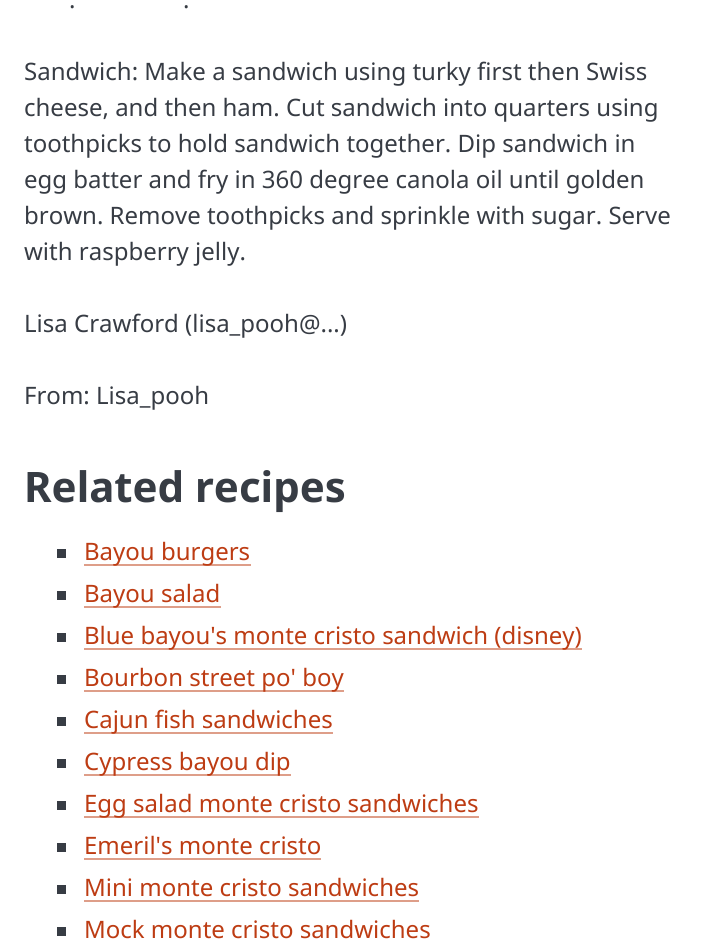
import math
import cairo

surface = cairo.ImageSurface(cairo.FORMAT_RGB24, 708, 942)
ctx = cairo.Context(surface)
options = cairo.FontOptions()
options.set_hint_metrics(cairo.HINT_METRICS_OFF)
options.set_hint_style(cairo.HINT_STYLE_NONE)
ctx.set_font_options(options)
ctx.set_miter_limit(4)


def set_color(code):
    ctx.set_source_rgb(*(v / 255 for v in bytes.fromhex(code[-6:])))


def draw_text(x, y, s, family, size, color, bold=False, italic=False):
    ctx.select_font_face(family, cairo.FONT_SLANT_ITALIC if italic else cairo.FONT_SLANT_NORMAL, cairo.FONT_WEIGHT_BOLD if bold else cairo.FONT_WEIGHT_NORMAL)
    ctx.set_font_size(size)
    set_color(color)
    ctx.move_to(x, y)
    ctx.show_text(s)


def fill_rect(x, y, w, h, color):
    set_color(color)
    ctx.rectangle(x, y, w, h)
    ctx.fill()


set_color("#ffffff")
ctx.paint()
draw_text(69, 8, ".", "Noto Sans", 24, "#373c44")
draw_text(183, 8, ".", "Noto Sans", 24, "#373c44")
draw_text(24, 80, "Sandwich: Make a sandwich using turky first then Swiss", "Noto Sans", 24, "#373c44")
draw_text(24, 116, "cheese, and then ham. Cut sandwich into quarters using", "Noto Sans", 24, "#373c44")
draw_text(24, 152, "toothpicks to hold sandwich together. Dip sandwich in", "Noto Sans", 24, "#373c44")
draw_text(24, 188, "egg batter and fry in 360 degree canola oil until golden", "Noto Sans", 24, "#373c44")
draw_text(24, 224, "brown. Remove toothpicks and sprinkle with sugar. Serve", "Noto Sans", 24, "#373c44")
draw_text(24, 260, "with raspberry jelly.", "Noto Sans", 24, "#373c44")
draw_text(24, 332, "Lisa Crawford (lisa_pooh@...)", "Noto Sans", 24, "#373c44")
draw_text(24, 404, "From: Lisa_pooh", "Noto Sans", 24, "#373c44")
draw_text(24, 502, "Related recipes", "Noto Sans", 42, "#373c44", bold=True)
fill_rect(57, 549, 9, 9, "#373c44")
fill_rect(84, 564, 167, 2, "#de9e89")
draw_text(84, 560, "Bayou burgers", "Noto Sans", 24, "#bd3c13")
fill_rect(57, 591, 9, 9, "#373c44")
fill_rect(84, 606, 137, 2, "#de9e89")
draw_text(84, 602, "Bayou salad", "Noto Sans", 24, "#bd3c13")
fill_rect(57, 633, 9, 9, "#373c44")
fill_rect(84, 648, 498, 2, "#de9e89")
draw_text(84, 644, "Blue bayou's monte cristo sandwich (disney)", "Noto Sans", 24, "#bd3c13")
fill_rect(57, 675, 9, 9, "#373c44")
fill_rect(84, 690, 260, 2, "#de9e89")
draw_text(84, 686, "Bourbon street po' boy", "Noto Sans", 24, "#bd3c13")
fill_rect(57, 717, 9, 9, "#373c44")
fill_rect(84, 732, 249, 2, "#de9e89")
draw_text(84, 728, "Cajun fish sandwiches", "Noto Sans", 24, "#bd3c13")
fill_rect(57, 759, 9, 9, "#373c44")
fill_rect(84, 774, 207, 2, "#de9e89")
draw_text(84, 770, "Cypress bayou dip", "Noto Sans", 24, "#bd3c13")
fill_rect(57, 801, 9, 9, "#373c44")
fill_rect(84, 816, 395, 2, "#de9e89")
draw_text(84, 812, "Egg salad monte cristo sandwiches", "Noto Sans", 24, "#bd3c13")
fill_rect(57, 843, 9, 9, "#373c44")
draw_text(84, 854, "Emeril's monte cristo", "Noto Sans", 24, "#bd3c13")
fill_rect(84, 858, 237, 2, "#de9e89")
fill_rect(57, 885, 9, 9, "#373c44")
draw_text(84, 896, "Mini monte cristo sandwiches", "Noto Sans", 24, "#bd3c13")
fill_rect(84, 900, 335, 2, "#de9e89")
fill_rect(57, 927, 9, 9, "#373c44")
draw_text(84, 938, "Mock monte cristo sandwiches", "Noto Sans", 24, "#bd3c13")
surface.write_to_png("output.png")
